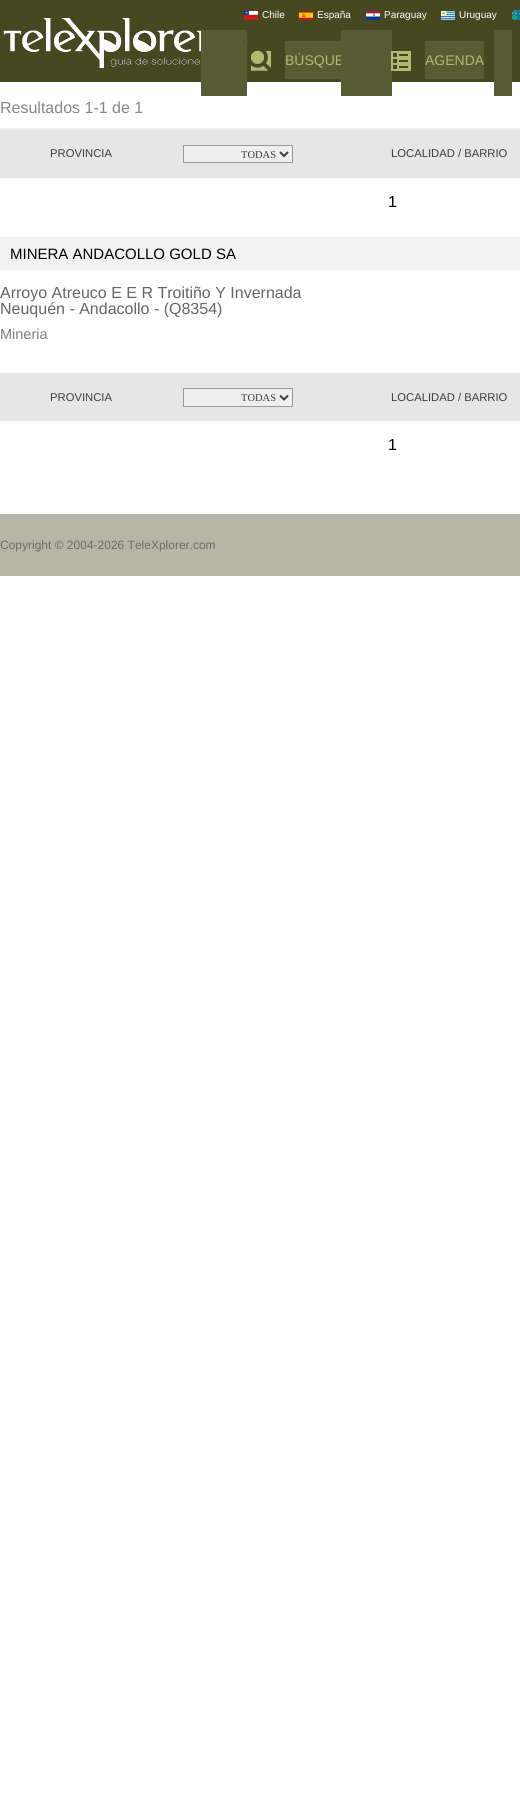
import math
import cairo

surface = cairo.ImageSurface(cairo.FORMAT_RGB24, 520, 1815)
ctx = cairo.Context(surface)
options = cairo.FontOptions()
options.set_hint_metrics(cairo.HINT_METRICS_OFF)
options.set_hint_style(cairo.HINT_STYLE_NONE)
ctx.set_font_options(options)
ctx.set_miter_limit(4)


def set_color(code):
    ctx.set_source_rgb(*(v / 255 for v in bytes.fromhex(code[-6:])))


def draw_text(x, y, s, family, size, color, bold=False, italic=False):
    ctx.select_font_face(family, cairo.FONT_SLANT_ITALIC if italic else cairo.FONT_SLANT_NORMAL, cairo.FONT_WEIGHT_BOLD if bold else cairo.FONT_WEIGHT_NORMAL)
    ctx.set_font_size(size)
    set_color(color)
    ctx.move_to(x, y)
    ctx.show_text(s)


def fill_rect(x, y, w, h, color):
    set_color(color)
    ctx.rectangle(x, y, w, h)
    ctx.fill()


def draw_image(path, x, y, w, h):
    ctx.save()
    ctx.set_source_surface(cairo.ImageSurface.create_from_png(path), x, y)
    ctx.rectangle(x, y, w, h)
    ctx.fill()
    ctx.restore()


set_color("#ffffff")
ctx.paint()
fill_rect(0, 0, 520, 82, "#46491f")
draw_image("assets/img1.png", 3, 18, 198, 50)
draw_image("assets/img2.png", 244, 11, 14, 9)
draw_text(262, 18, "Chile", "Liberation Sans", 10, "#ffffff")
draw_image("assets/img3.png", 299, 11, 14, 9)
draw_text(317, 18, "España", "Liberation Sans", 10, "#ffffff")
draw_image("assets/img4.png", 366, 11, 14, 9)
draw_text(384, 18, "Paraguay", "Liberation Sans", 10, "#ffffff")
draw_image("assets/img5.png", 441, 11, 14, 9)
draw_text(459, 18, "Uruguay", "Liberation Sans", 10, "#ffffff")
draw_image("assets/img6.png", 512, 10, 8, 10)
fill_rect(201, 30, 46, 66, "#575c33")
draw_image("assets/img7.png", 251, 50, 20, 21)
fill_rect(285, 41, 56, 38, "#575c33")
fill_rect(387, 30, 5, 66, "#575c33")
draw_image("assets/img8.png", 243, 41, 4, 4)
draw_text(285, 65, "BÚSQUE", "Liberation Sans", 14, "#b1ba70")
fill_rect(341, 30, 46, 66, "#575c33")
draw_image("assets/img9.png", 391, 51, 20, 20)
fill_rect(425, 41, 59, 38, "#575c33")
fill_rect(494, 30, 18, 66, "#575c33")
draw_image("assets/img8.png", 383, 41, 4, 4)
fill_rect(497, 41, 1, 1, "#50542c")
draw_text(425, 65, "AGENDA", "Liberation Sans", 14, "#b1ba70")
fill_rect(0, 128, 520, 2, "#f2f2f2")
draw_text(0, 113, "Resultados 1-1 de 1", "Liberation Sans", 16, "#878787")
fill_rect(0, 130, 520, 48, "#e6e6e6")
draw_text(50, 157, "PROVINCIA", "Liberation Sans", 11.25, "#3d3d3d")
set_color("#efefef")
ctx.rectangle(183.5, 145.5, 109, 17)
ctx.fill_preserve()
set_color("#999999")
ctx.set_line_width(1)
ctx.stroke()
ctx.new_path()
ctx.move_to(280, 152)
ctx.line_to(284, 156)
ctx.line_to(288, 152)
set_color("#3d3d3d")
ctx.set_line_width(2)
ctx.stroke()
draw_text(241, 158, "TODAS", "Liberation Serif", 10.5, "#3d3d3d")
draw_text(391, 157, "LOCALIDAD / BARRIO", "Liberation Sans", 11.25, "#3d3d3d")
draw_text(388, 207, "1", "Liberation Sans", 16, "#000000")
fill_rect(0, 237, 520, 33, "#f2f2f2")
draw_text(10, 259, "MINERA ANDACOLLO GOLD SA", "Liberation Sans", 15, "#000000")
draw_text(0, 298, "Arroyo Atreuco E E R Troitiño Y Invernada", "Liberation Sans", 16, "#666666")
draw_text(0, 314, "Neuquén - Andacollo - (Q8354)", "Liberation Sans", 16, "#666666")
draw_text(0, 339, "Mineria", "Liberation Sans", 14.5, "#7f7f7f")
fill_rect(0, 373, 520, 48, "#e6e6e6")
draw_text(50, 401, "PROVINCIA", "Liberation Sans", 11.25, "#3d3d3d")
set_color("#efefef")
ctx.rectangle(183.5, 388.5, 109, 18)
ctx.fill_preserve()
set_color("#999999")
ctx.set_line_width(1)
ctx.stroke()
ctx.new_path()
ctx.move_to(280, 395.5)
ctx.line_to(284, 399.5)
ctx.line_to(288, 395.5)
set_color("#3d3d3d")
ctx.set_line_width(2)
ctx.stroke()
draw_text(241, 401, "TODAS", "Liberation Serif", 10.5, "#3d3d3d")
draw_text(391, 401, "LOCALIDAD / BARRIO", "Liberation Sans", 11.25, "#3d3d3d")
draw_text(388, 450, "1", "Liberation Sans", 16, "#000000")
fill_rect(0, 514, 520, 62, "#b5b6a5")
draw_text(0, 549, "Copyright © 2004-2026 TeleXplorer.com", "Liberation Sans", 12, "#6d6d63")
surface.write_to_png("output.png")
